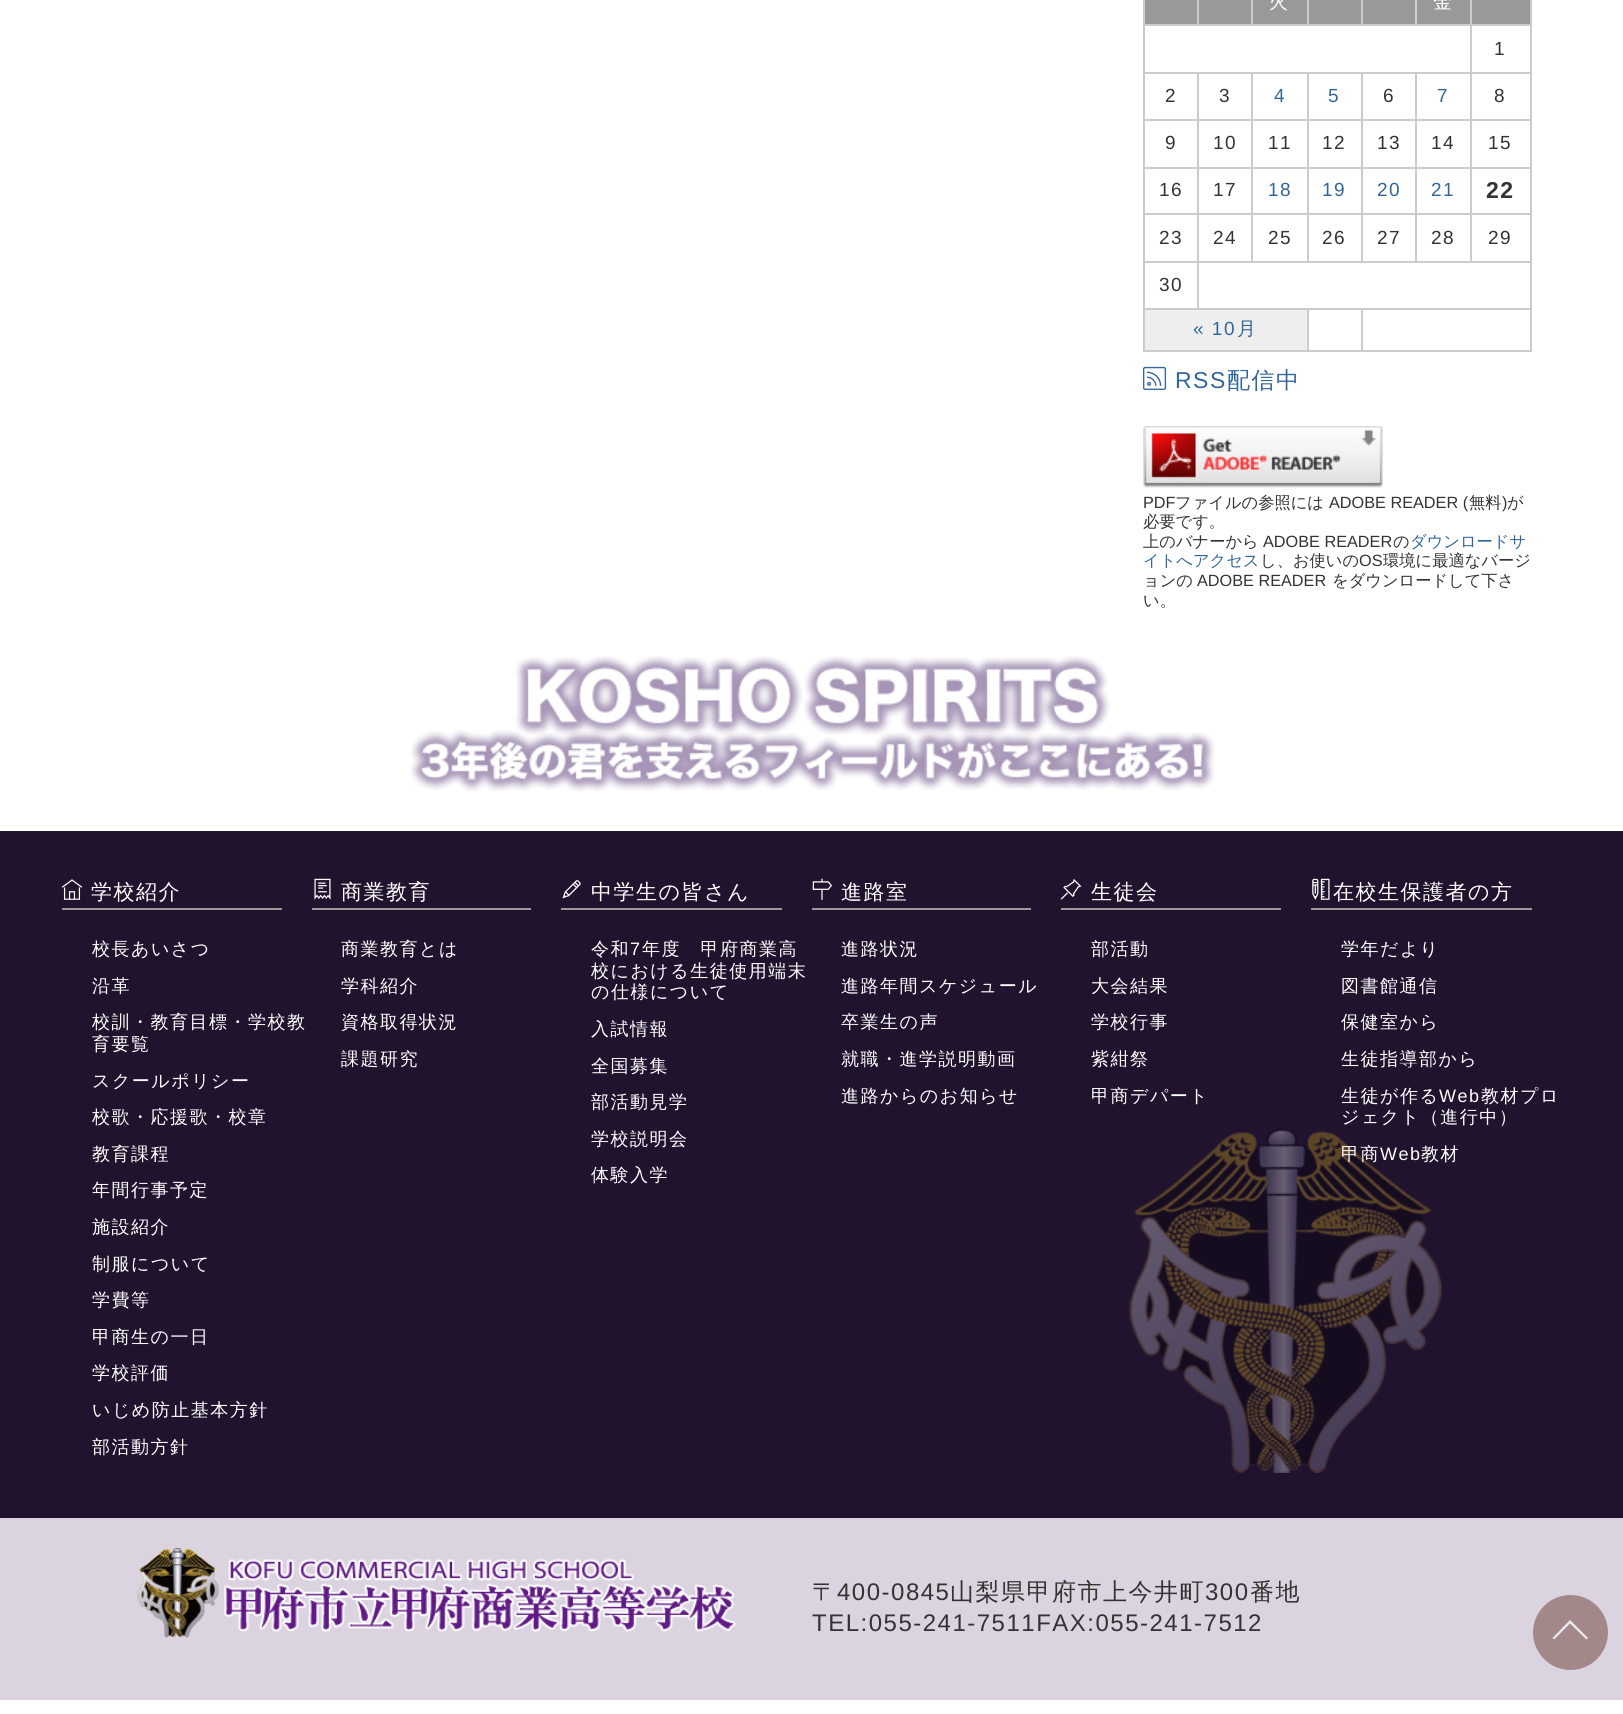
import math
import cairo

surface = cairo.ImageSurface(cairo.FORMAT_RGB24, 1623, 1714)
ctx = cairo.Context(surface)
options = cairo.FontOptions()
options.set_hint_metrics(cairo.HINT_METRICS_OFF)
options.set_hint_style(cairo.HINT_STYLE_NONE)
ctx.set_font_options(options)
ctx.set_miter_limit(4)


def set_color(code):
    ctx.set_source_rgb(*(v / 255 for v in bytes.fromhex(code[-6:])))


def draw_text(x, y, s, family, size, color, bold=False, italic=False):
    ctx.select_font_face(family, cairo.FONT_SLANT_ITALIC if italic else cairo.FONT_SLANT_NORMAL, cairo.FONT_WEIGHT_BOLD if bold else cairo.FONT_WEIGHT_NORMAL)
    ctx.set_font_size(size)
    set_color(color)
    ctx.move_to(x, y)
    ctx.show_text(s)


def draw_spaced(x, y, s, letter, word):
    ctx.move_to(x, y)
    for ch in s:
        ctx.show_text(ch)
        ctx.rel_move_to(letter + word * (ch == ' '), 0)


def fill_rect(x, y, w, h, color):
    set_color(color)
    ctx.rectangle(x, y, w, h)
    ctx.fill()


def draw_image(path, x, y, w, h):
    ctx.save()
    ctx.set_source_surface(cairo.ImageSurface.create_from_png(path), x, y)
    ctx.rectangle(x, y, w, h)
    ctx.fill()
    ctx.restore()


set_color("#ffffff")
ctx.paint()
fill_rect(1143, 0, 2, 351, "#cccccc")
fill_rect(1145, 0, 52, 24, "#999999")
fill_rect(1530, 0, 2, 309, "#cccccc")
fill_rect(1470, 261, 62, 2, "#cccccc")
fill_rect(1470, 213, 2, 50, "#cccccc")
fill_rect(1470, 213, 62, 2, "#cccccc")
fill_rect(1470, 167, 2, 48, "#cccccc")
fill_rect(1470, 167, 62, 2, "#cccccc")
fill_rect(1470, 119, 2, 49, "#cccccc")
fill_rect(1470, 119, 62, 2, "#cccccc")
fill_rect(1470, 72, 2, 48, "#cccccc")
fill_rect(1470, 72, 62, 2, "#cccccc")
fill_rect(1470, 24, 2, 50, "#cccccc")
fill_rect(1470, 24, 62, 2, "#cccccc")
fill_rect(1470, 0, 2, 26, "#cccccc")
fill_rect(1415, 24, 57, 2, "#cccccc")
fill_rect(1415, 0, 2, 26, "#cccccc")
fill_rect(1361, 24, 55, 2, "#cccccc")
fill_rect(1361, 0, 2, 26, "#cccccc")
fill_rect(1307, 24, 55, 2, "#cccccc")
fill_rect(1307, 0, 2, 26, "#cccccc")
fill_rect(1251, 24, 57, 2, "#cccccc")
fill_rect(1251, 0, 2, 26, "#cccccc")
fill_rect(1197, 24, 56, 2, "#cccccc")
fill_rect(1197, 0, 2, 26, "#cccccc")
fill_rect(1143, 24, 56, 2, "#cccccc")
fill_rect(1199, 0, 52, 24, "#999999")
fill_rect(1253, 0, 54, 24, "#999999")
ctx.select_font_face("WenQuanYi Zen Hei Medium")
ctx.set_font_size(19)
set_color("#ffffff")
draw_spaced(1269, 8, "火", 1.5, 0)
fill_rect(1309, 0, 52, 24, "#999999")
fill_rect(1363, 0, 52, 24, "#999999")
fill_rect(1417, 0, 53, 24, "#999999")
set_color("#ffffff")
draw_spaced(1433, 8, "金", 1.5, 0)
fill_rect(1472, 0, 58, 24, "#999999")
fill_rect(1415, 261, 57, 2, "#cccccc")
fill_rect(1415, 213, 2, 50, "#cccccc")
fill_rect(1415, 213, 57, 2, "#cccccc")
fill_rect(1415, 167, 2, 48, "#cccccc")
fill_rect(1415, 167, 57, 2, "#cccccc")
fill_rect(1415, 119, 2, 49, "#cccccc")
fill_rect(1415, 119, 57, 2, "#cccccc")
fill_rect(1415, 72, 2, 48, "#cccccc")
fill_rect(1361, 261, 55, 2, "#cccccc")
fill_rect(1361, 213, 2, 50, "#cccccc")
fill_rect(1361, 213, 55, 2, "#cccccc")
fill_rect(1361, 167, 2, 48, "#cccccc")
fill_rect(1361, 167, 55, 2, "#cccccc")
fill_rect(1361, 119, 2, 49, "#cccccc")
fill_rect(1361, 119, 55, 2, "#cccccc")
fill_rect(1361, 72, 2, 48, "#cccccc")
fill_rect(1307, 261, 55, 2, "#cccccc")
fill_rect(1307, 213, 2, 50, "#cccccc")
fill_rect(1307, 213, 55, 2, "#cccccc")
fill_rect(1307, 167, 2, 48, "#cccccc")
fill_rect(1307, 167, 55, 2, "#cccccc")
fill_rect(1307, 119, 2, 49, "#cccccc")
fill_rect(1307, 119, 55, 2, "#cccccc")
fill_rect(1307, 72, 2, 48, "#cccccc")
fill_rect(1251, 261, 57, 2, "#cccccc")
fill_rect(1251, 213, 2, 50, "#cccccc")
fill_rect(1251, 213, 57, 2, "#cccccc")
fill_rect(1251, 167, 2, 48, "#cccccc")
fill_rect(1251, 167, 57, 2, "#cccccc")
fill_rect(1251, 119, 2, 49, "#cccccc")
fill_rect(1251, 119, 57, 2, "#cccccc")
fill_rect(1251, 72, 2, 48, "#cccccc")
fill_rect(1197, 308, 335, 2, "#cccccc")
fill_rect(1197, 261, 2, 48, "#cccccc")
fill_rect(1197, 261, 56, 2, "#cccccc")
fill_rect(1197, 213, 2, 50, "#cccccc")
fill_rect(1197, 213, 56, 2, "#cccccc")
fill_rect(1197, 167, 2, 48, "#cccccc")
fill_rect(1197, 167, 56, 2, "#cccccc")
fill_rect(1197, 119, 2, 49, "#cccccc")
fill_rect(1197, 119, 56, 2, "#cccccc")
fill_rect(1197, 72, 2, 48, "#cccccc")
fill_rect(1143, 72, 329, 2, "#cccccc")
ctx.select_font_face("Liberation Sans")
set_color("#333333")
draw_spaced(1494, 55, "1", 1.5, 0)
fill_rect(1143, 119, 56, 2, "#cccccc")
set_color("#333333")
draw_spaced(1165, 102, "2", 1.5, 0)
draw_spaced(1219, 102, "3", 1.5, 0)
set_color("#336699")
draw_spaced(1274, 102, "4", 1.5, 0)
draw_spaced(1328, 102, "5", 1.5, 0)
set_color("#333333")
draw_spaced(1383, 102, "6", 1.5, 0)
set_color("#336699")
draw_spaced(1437, 102, "7", 1.5, 0)
set_color("#333333")
draw_spaced(1494, 102, "8", 1.5, 0)
fill_rect(1143, 167, 56, 2, "#cccccc")
set_color("#333333")
draw_spaced(1165, 149, "9", 1.5, 0)
draw_spaced(1213, 149, "10", 1.5, 0)
draw_spaced(1268, 149, "11", 1.5, 0)
draw_spaced(1322, 149, "12", 1.5, 0)
draw_spaced(1377, 149, "13", 1.5, 0)
draw_spaced(1431, 149, "14", 1.5, 0)
draw_spaced(1488, 149, "15", 1.5, 0)
fill_rect(1143, 213, 56, 2, "#cccccc")
set_color("#333333")
draw_spaced(1159, 196, "16", 1.5, 0)
draw_spaced(1213, 196, "17", 1.5, 0)
set_color("#336699")
draw_spaced(1268, 196, "18", 1.5, 0)
draw_spaced(1322, 196, "19", 1.5, 0)
draw_spaced(1377, 196, "20", 1.5, 0)
draw_spaced(1431, 196, "21", 1.5, 0)
ctx.select_font_face("Liberation Sans", cairo.FONT_SLANT_NORMAL, cairo.FONT_WEIGHT_BOLD)
ctx.set_font_size(23)
set_color("#333333")
draw_spaced(1486, 198, "22", 1.5, 0)
fill_rect(1143, 261, 56, 2, "#cccccc")
ctx.select_font_face("Liberation Sans")
ctx.set_font_size(19)
set_color("#333333")
draw_spaced(1159, 244, "23", 1.5, 0)
draw_spaced(1213, 244, "24", 1.5, 0)
draw_spaced(1268, 244, "25", 1.5, 0)
draw_spaced(1322, 244, "26", 1.5, 0)
draw_spaced(1377, 244, "27", 1.5, 0)
draw_spaced(1431, 244, "28", 1.5, 0)
draw_spaced(1488, 244, "29", 1.5, 0)
fill_rect(1143, 308, 56, 2, "#cccccc")
set_color("#333333")
draw_spaced(1159, 291, "30", 1.5, 0)
fill_rect(1530, 308, 2, 43, "#cccccc")
fill_rect(1361, 350, 171, 2, "#cccccc")
fill_rect(1361, 308, 2, 43, "#cccccc")
fill_rect(1307, 350, 55, 2, "#cccccc")
fill_rect(1307, 308, 2, 43, "#cccccc")
fill_rect(1143, 350, 165, 2, "#cccccc")
fill_rect(1145, 310, 162, 40, "#eeeeee")
set_color("#336699")
draw_spaced(1193, 335, "« 10", 1.5, 0)
ctx.select_font_face("WenQuanYi Zen Hei Medium")
draw_spaced(1237, 335, "月", 1.5, 0)
draw_image("assets/img1.png", 1143, 366, 24, 24)
ctx.select_font_face("Liberation Sans")
ctx.set_font_size(23)
draw_spaced(1175, 388, "RSS", 1.5, 0)
ctx.select_font_face("WenQuanYi Zen Hei Medium")
draw_spaced(1227, 388, "配信中", 1.5, 0)
draw_image("assets/img2.png", 1143, 426, 240, 62)
draw_text(1143, 508, "PDF", "Liberation Sans", 16.25, "#333333")
draw_text(1175, 508, "ファイルの参照には", "WenQuanYi Zen Hei Medium", 16.25, "#333333")
draw_text(1329, 508, "ADOBE READER (", "Liberation Sans", 16.25, "#333333")
draw_text(1469, 508, "無料", "WenQuanYi Zen Hei Medium", 16.25, "#333333")
draw_text(1502, 508, ")", "Liberation Sans", 16.25, "#333333")
draw_text(1507, 508, "が", "WenQuanYi Zen Hei Medium", 16.25, "#333333")
draw_text(1143, 527, "必要です。", "WenQuanYi Zen Hei Medium", 16.25, "#333333")
draw_text(1143, 547, "上のバナーから", "WenQuanYi Zen Hei Medium", 16.25, "#333333")
draw_text(1263, 547, "ADOBE READER", "Liberation Sans", 16.25, "#333333")
draw_text(1393, 547, "の", "WenQuanYi Zen Hei Medium", 16.25, "#333333")
draw_text(1410, 547, "ダウンロードサ", "WenQuanYi Zen Hei Medium", 16.25, "#336699")
draw_text(1143, 566, "イトへアクセス", "WenQuanYi Zen Hei Medium", 16.25, "#336699")
draw_text(1260, 566, "し、お使いの", "WenQuanYi Zen Hei Medium", 16.25, "#333333")
draw_text(1359, 566, "OS", "Liberation Sans", 16.25, "#333333")
draw_text(1383, 566, "環境に最適なバージ", "WenQuanYi Zen Hei Medium", 16.25, "#333333")
draw_text(1143, 586, "ョンの", "WenQuanYi Zen Hei Medium", 16.25, "#333333")
draw_text(1197, 586, "ADOBE READER", "Liberation Sans", 16.25, "#333333")
draw_text(1332, 586, "をダウンロードして下さ", "WenQuanYi Zen Hei Medium", 16.25, "#333333")
draw_text(1143, 606, "い。", "WenQuanYi Zen Hei Medium", 16.25, "#333333")
draw_image("assets/img3.png", 411, 656, 804, 136)
fill_rect(0, 831, 1623, 687, "#21122e")
fill_rect(62, 908, 220, 2, "#999999")
draw_image("assets/img4.png", 61, 879, 22, 21)
ctx.set_font_size(21)
set_color("#ffffff")
draw_spaced(91, 899, "学校紹介", 1.5, 0)
ctx.set_font_size(18)
draw_spaced(92, 955, "校長あいさつ", 1.5, 0)
draw_spaced(92, 992, "沿革", 1.5, 0)
draw_spaced(92, 1028, "校訓・教育目標・学校教", 1.5, 0)
draw_spaced(92, 1050, "育要覧", 1.5, 0)
draw_spaced(92, 1087, "スクールポリシー", 1.5, 0)
draw_spaced(92, 1123, "校歌・応援歌・校章", 1.5, 0)
draw_spaced(92, 1160, "教育課程", 1.5, 0)
draw_spaced(92, 1196, "年間行事予定", 1.5, 0)
draw_spaced(92, 1233, "施設紹介", 1.5, 0)
draw_spaced(92, 1270, "制服について", 1.5, 0)
draw_spaced(92, 1306, "学費等", 1.5, 0)
draw_spaced(92, 1343, "甲商生の一日", 1.5, 0)
draw_spaced(92, 1379, "学校評価", 1.5, 0)
draw_spaced(92, 1416, "いじめ防止基本方針", 1.5, 0)
draw_spaced(92, 1453, "部活動方針", 1.5, 0)
fill_rect(312, 908, 219, 2, "#999999")
draw_image("assets/img5.png", 314, 878, 17, 22)
ctx.set_font_size(21)
set_color("#ffffff")
draw_spaced(341, 899, "商業教育", 1.5, 0)
ctx.set_font_size(18)
draw_spaced(341, 955, "商業教育とは", 1.5, 0)
draw_spaced(341, 992, "学科紹介", 1.5, 0)
draw_spaced(341, 1028, "資格取得状況", 1.5, 0)
draw_spaced(341, 1065, "課題研究", 1.5, 0)
fill_rect(561, 908, 221, 2, "#999999")
draw_image("assets/img6.png", 562, 880, 19, 19)
ctx.set_font_size(21)
set_color("#ffffff")
draw_spaced(591, 899, "中学生の皆さん", 1.5, 0)
ctx.set_font_size(18)
draw_spaced(591, 955, "令和", 1.5, 0)
ctx.select_font_face("Liberation Sans")
draw_spaced(630, 955, "7", 1.5, 0)
ctx.select_font_face("WenQuanYi Zen Hei Medium")
draw_spaced(642, 955, "年度　甲府商業高", 1.5, 0)
draw_spaced(591, 977, "校における生徒使用端末", 1.5, 0)
draw_spaced(591, 998, "の仕様について", 1.5, 0)
draw_spaced(591, 1035, "入試情報", 1.5, 0)
draw_spaced(591, 1072, "全国募集", 1.5, 0)
draw_spaced(591, 1108, "部活動見学", 1.5, 0)
draw_spaced(591, 1145, "学校説明会", 1.5, 0)
draw_spaced(591, 1181, "体験入学", 1.5, 0)
fill_rect(812, 908, 219, 2, "#999999")
draw_image("assets/img7.png", 812, 878, 20, 22)
ctx.set_font_size(21)
set_color("#ffffff")
draw_spaced(841, 899, "進路室", 1.5, 0)
ctx.set_font_size(18)
draw_spaced(841, 955, "進路状況", 1.5, 0)
draw_spaced(841, 992, "進路年間スケジュール", 1.5, 0)
draw_spaced(841, 1028, "卒業生の声", 1.5, 0)
draw_spaced(841, 1065, "就職・進学説明動画", 1.5, 0)
draw_spaced(841, 1102, "進路からのお知らせ", 1.5, 0)
fill_rect(1061, 908, 220, 2, "#999999")
draw_image("assets/img8.png", 1060, 878, 22, 22)
ctx.set_font_size(21)
set_color("#ffffff")
draw_spaced(1091, 899, "生徒会", 1.5, 0)
ctx.set_font_size(18)
draw_spaced(1091, 955, "部活動", 1.5, 0)
draw_spaced(1091, 992, "大会結果", 1.5, 0)
draw_spaced(1091, 1028, "学校行事", 1.5, 0)
draw_spaced(1091, 1065, "紫紺祭", 1.5, 0)
draw_spaced(1091, 1102, "甲商デパート", 1.5, 0)
fill_rect(1311, 908, 221, 2, "#999999")
draw_image("assets/img9.png", 1312, 878, 18, 22)
ctx.set_font_size(21)
set_color("#ffffff")
draw_spaced(1333, 899, "在校生保護者の方", 1.5, 0)
ctx.set_font_size(18)
draw_spaced(1341, 955, "学年だより", 1.5, 0)
draw_spaced(1341, 992, "図書館通信", 1.5, 0)
draw_spaced(1341, 1028, "保健室から", 1.5, 0)
draw_spaced(1341, 1065, "生徒指導部から", 1.5, 0)
draw_spaced(1341, 1102, "生徒が作る", 1.5, 0)
ctx.select_font_face("Liberation Sans")
draw_spaced(1439, 1102, "Web", 1.5, 0)
ctx.select_font_face("WenQuanYi Zen Hei Medium")
draw_spaced(1481, 1102, "教材プロ", 1.5, 0)
draw_spaced(1341, 1123, "ジェクト（進行中）", 1.5, 0)
draw_image("assets/img10.png", 1129, 1128, 313, 345)
draw_spaced(1341, 1160, "甲商", 1.5, 0)
ctx.select_font_face("Liberation Sans")
draw_spaced(1380, 1160, "Web", 1.5, 0)
ctx.select_font_face("WenQuanYi Zen Hei Medium")
draw_spaced(1421, 1160, "教材", 1.5, 0)
fill_rect(0, 1518, 1623, 182, "#dcd3e0")
draw_image("assets/img11.png", 137, 1548, 599, 90)
ctx.set_font_size(24)
set_color("#333333")
draw_spaced(812, 1600, "〒", 1.5, 0)
ctx.select_font_face("Liberation Sans")
draw_spaced(837, 1600, "400-0845", 1.5, 0)
ctx.select_font_face("WenQuanYi Zen Hei Medium")
draw_spaced(950, 1600, "山梨県甲府市上今井町", 1.5, 0)
ctx.select_font_face("Liberation Sans")
draw_spaced(1205, 1600, "300", 1.5, 0)
ctx.select_font_face("WenQuanYi Zen Hei Medium")
draw_spaced(1250, 1600, "番地", 1.5, 0)
ctx.select_font_face("Liberation Sans")
draw_spaced(812, 1631, "TEL:055-241-7511FAX:055-241-7512", 1.5, 0)
set_color("#a3888a")
ctx.new_path()
ctx.arc(1570.5, 1632.5, 37.5, 0, 2 * math.pi)
ctx.fill()
set_color("#eee9f0")
ctx.new_path()
ctx.move_to(1588, 1638)
ctx.line_to(1586.5, 1639.5)
ctx.line_to(1570, 1623.5)
ctx.line_to(1554, 1639.5)
ctx.line_to(1552.5, 1638)
ctx.line_to(1570, 1620)
ctx.close_path()
ctx.fill()
surface.write_to_png("output.png")
